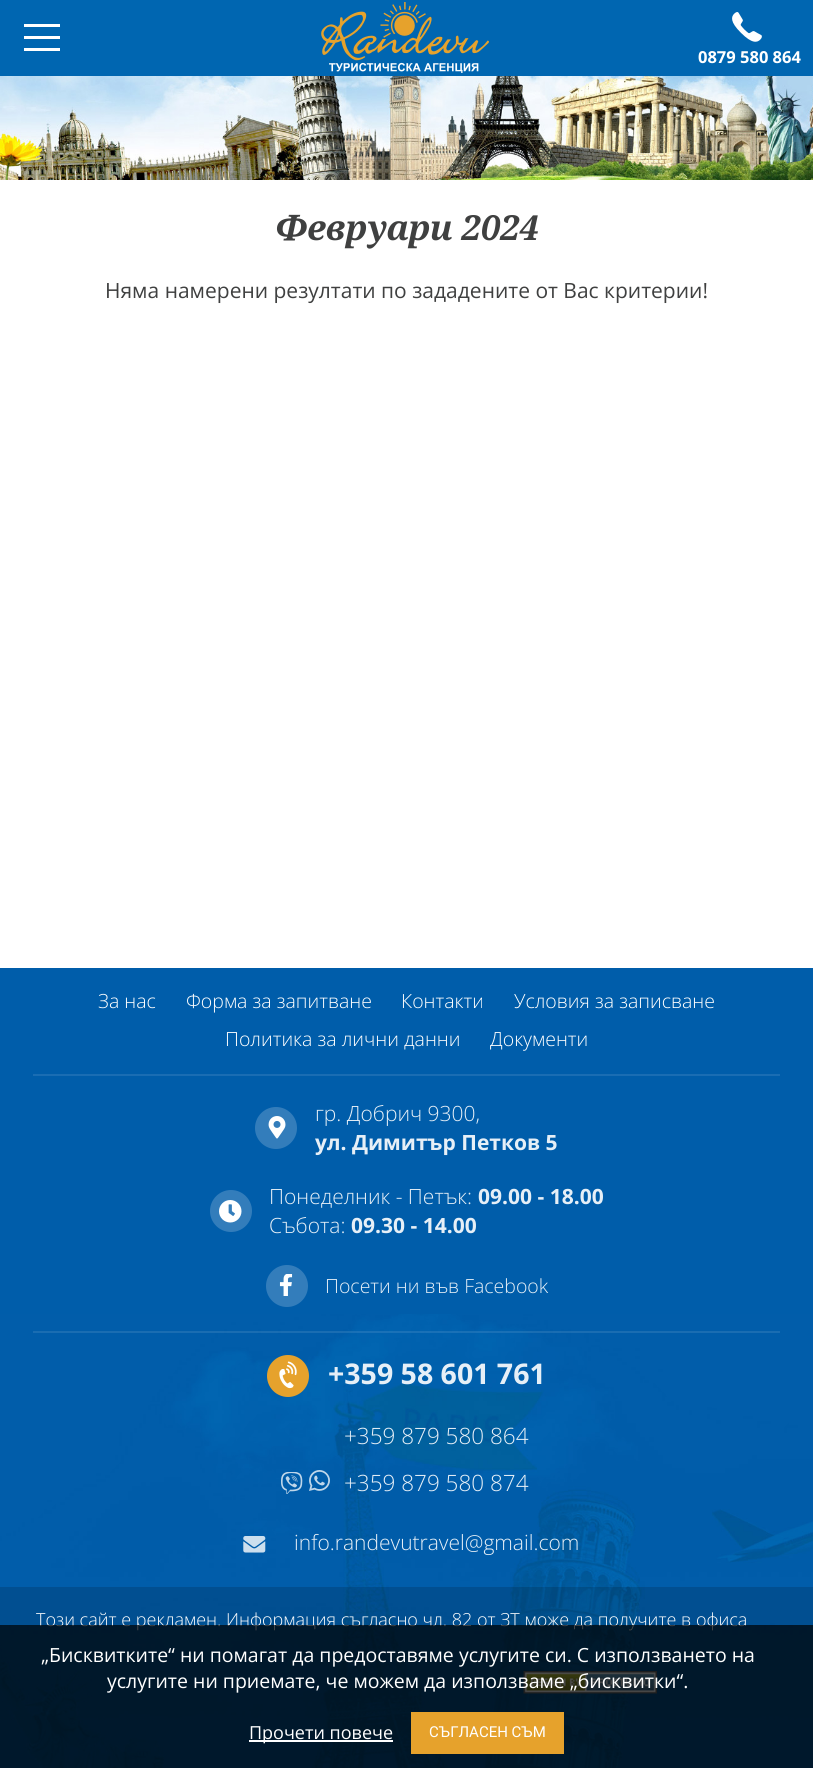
import math
import cairo

surface = cairo.ImageSurface(cairo.FORMAT_RGB24, 813, 1768)
ctx = cairo.Context(surface)
options = cairo.FontOptions()
options.set_hint_metrics(cairo.HINT_METRICS_OFF)
options.set_hint_style(cairo.HINT_STYLE_NONE)
ctx.set_font_options(options)
ctx.set_miter_limit(4)


def set_color(code):
    ctx.set_source_rgb(*(v / 255 for v in bytes.fromhex(code[-6:])))


def draw_text(x, y, s, family, size, color, bold=False, italic=False):
    ctx.select_font_face(family, cairo.FONT_SLANT_ITALIC if italic else cairo.FONT_SLANT_NORMAL, cairo.FONT_WEIGHT_BOLD if bold else cairo.FONT_WEIGHT_NORMAL)
    ctx.set_font_size(size)
    set_color(color)
    ctx.move_to(x, y)
    ctx.show_text(s)


def fill_rect(x, y, w, h, color):
    set_color(color)
    ctx.rectangle(x, y, w, h)
    ctx.fill()


def draw_image(path, x, y, w, h):
    ctx.save()
    ctx.set_source_surface(cairo.ImageSurface.create_from_png(path), x, y)
    ctx.rectangle(x, y, w, h)
    ctx.fill()
    ctx.restore()


set_color("#ffffff")
ctx.paint()
fill_rect(0, 0, 813, 76, "#0066b1")
fill_rect(24, 24, 36, 3, "#ffffff")
fill_rect(24, 36, 36, 3, "#ffffff")
fill_rect(24, 48, 36, 3, "#ffffff")
draw_image("assets/img1.png", 321, 2, 168, 71)
draw_image("assets/img2.png", 732, 12, 30, 30)
draw_text(698, 63, "0879 580 864", "Open Sans", 16.5, "#ffffff", bold=True)
draw_image("assets/img3.png", 0, 76, 813, 104)
draw_text(275, 240, "Февруари 2024", "Noto Serif", 34.5, "#3f4040", bold=True, italic=True)
draw_text(105, 298, "Няма намерени резултати по зададените от Вас критерии!", "Open Sans", 21, "#3f4040")
fill_rect(0, 968, 813, 346, "#005daa")
draw_image("assets/img4.png", 0, 1314, 813, 454)
fill_rect(33, 1074, 747, 2, "#1a6db3")
draw_text(98, 1008, "За нас", "Open Sans Light", 19.5, "#ffffff")
draw_text(186, 1008, "Форма за запитване", "Open Sans Light", 19.5, "#ffffff")
draw_text(401, 1008, "Контакти", "Open Sans Light", 19.5, "#ffffff")
draw_text(514, 1008, "Условия за записване", "Open Sans Light", 19.5, "#ffffff")
draw_text(225, 1046, "Политика за лични данни", "Open Sans Light", 19.5, "#ffffff")
draw_text(490, 1046, "Документи", "Open Sans Light", 19.5, "#ffffff")
ctx.set_source_rgba(1, 1, 1, 0.1)
ctx.rectangle(33, 1331, 747, 2)
ctx.fill()
set_color("#337dbb")
ctx.arc(276, 1128, 21, 0, 2 * math.pi)
ctx.fill()
draw_image("assets/img5.png", 268, 1116, 18, 23)
draw_text(315, 1121, "гр. Добрич 9300,", "Open Sans Light", 21, "#e6eff7")
draw_text(315, 1150, "ул. Димитър Петков 5", "Open Sans", 21, "#e6eff7", bold=True)
set_color("#337dbb")
ctx.new_path()
ctx.arc(231, 1211, 21, 0, 2 * math.pi)
ctx.fill()
draw_image("assets/img6.png", 219, 1200, 23, 23)
draw_text(269, 1204, "Понеделник - Петък:", "Open Sans Light", 21, "#e6eff7")
draw_text(478, 1204, "09.00 - 18.00", "Open Sans", 21, "#e6eff7", bold=True)
draw_text(269, 1233, "Събота:", "Open Sans Light", 21, "#e6eff7")
draw_text(351, 1233, "09.30 - 14.00", "Open Sans", 21, "#e6eff7", bold=True)
set_color("#337dbb")
ctx.new_path()
ctx.arc(287, 1286, 21, 0, 2 * math.pi)
ctx.fill()
draw_image("assets/img7.png", 279, 1274, 14, 22)
draw_text(325, 1293, "Посети ни във Facebook", "Open Sans Light", 19.5, "#e6eff7")
set_color("#e6a22c")
ctx.new_path()
ctx.arc(288, 1376, 21, 0, 2 * math.pi)
ctx.fill()
draw_image("assets/img8.png", 279, 1361, 18, 28)
draw_text(328, 1384, "+359 58 601 761", "Open Sans", 28.5, "#e6eff7", bold=True)
draw_text(344, 1444, "+359 879 580 864", "Open Sans Light", 22.5, "#e6eff7")
draw_image("assets/img9.png", 281, 1472, 22, 22)
draw_image("assets/img10.png", 309, 1470, 21, 21)
draw_text(344, 1491, "+359 879 580 874", "Open Sans Light", 22.5, "#e6eff7")
draw_image("assets/img11.png", 243, 1536, 23, 17)
draw_text(294, 1550, "info.randevutravel@gmail.com", "Open Sans Light", 21, "#e6eff7")
ctx.set_source_rgba(0, 0, 0, 0.15)
ctx.rectangle(0, 1587, 813, 181)
ctx.fill()
draw_text(36, 1626, "Този сайт е рекламен. Информация съгласно чл. 82 от ЗТ може да получите в офиса", "Open Sans Light", 18, "#ffffff")
draw_image("assets/img12.png", 523, 1671, 134, 23)
ctx.set_source_rgba(0, 0, 0, 0.7)
ctx.rectangle(0, 1625, 813, 143)
ctx.fill()
draw_text(41, 1662, "„Бисквитките“ ни помагат да предоставяме услугите си. С използването на", "Open Sans", 19.5, "#ffffff")
draw_text(107, 1688, "услугите ни приемате, че можем да използваме „бисквитки“.", "Open Sans", 19.5, "#ffffff")
fill_rect(249, 1740, 144, 2, "#ffffff")
draw_text(249, 1739, "Прочети повече", "Open Sans", 18, "#ffffff")
fill_rect(411, 1712, 153, 42, "#e6a22c")
draw_text(429, 1737, "СЪГЛАСЕН СЪМ", "Roboto", 15, "#ffffff")
surface.write_to_png("output.png")
